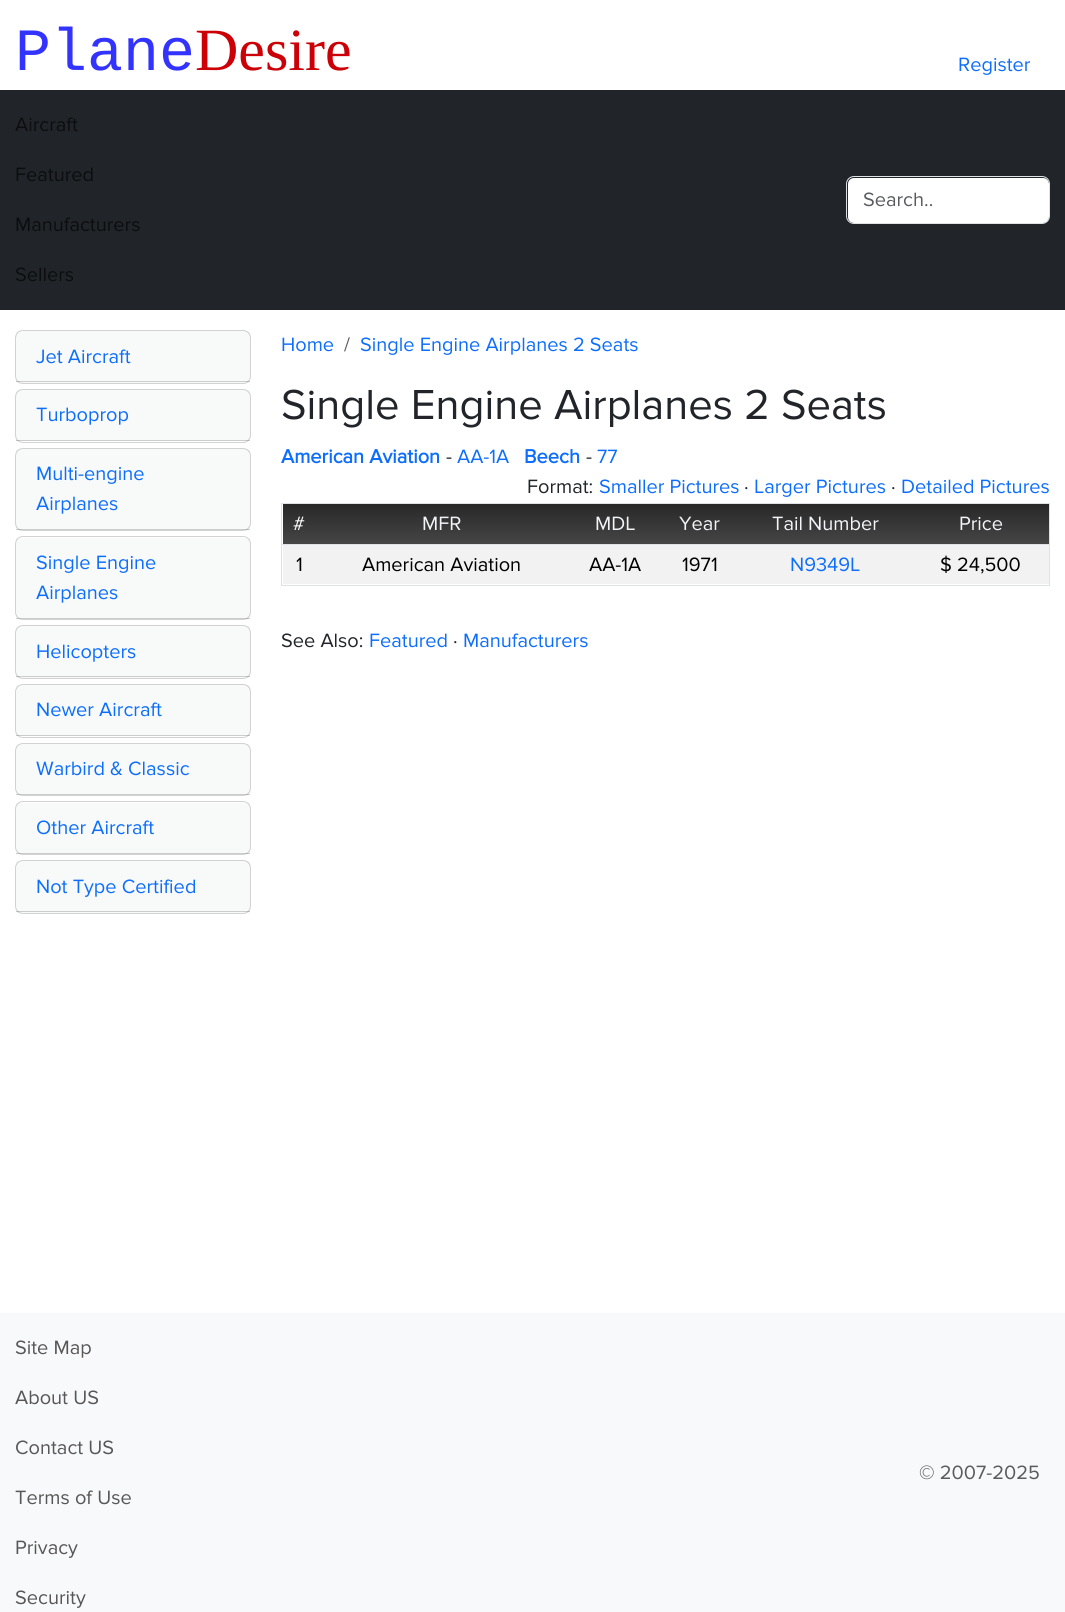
import math
import cairo

surface = cairo.ImageSurface(cairo.FORMAT_RGB24, 1065, 1612)
ctx = cairo.Context(surface)
options = cairo.FontOptions()
options.set_hint_metrics(cairo.HINT_METRICS_OFF)
options.set_hint_style(cairo.HINT_STYLE_NONE)
ctx.set_font_options(options)
ctx.set_miter_limit(4)


def set_color(code):
    ctx.set_source_rgb(*(v / 255 for v in bytes.fromhex(code[-6:])))


def draw_text(x, y, s, family, size, color, bold=False, italic=False):
    ctx.select_font_face(family, cairo.FONT_SLANT_ITALIC if italic else cairo.FONT_SLANT_NORMAL, cairo.FONT_WEIGHT_BOLD if bold else cairo.FONT_WEIGHT_NORMAL)
    ctx.set_font_size(size)
    set_color(color)
    ctx.move_to(x, y)
    ctx.show_text(s)


def fill_rect(x, y, w, h, color):
    set_color(color)
    ctx.rectangle(x, y, w, h)
    ctx.fill()


def rounded_rect(x, y, w, h, r):
    ctx.new_sub_path()
    for i, (u, v) in enumerate([(x + w - r, y + h - r), (x + r, y + h - r), (x + r, y + r), (x + w - r, y + r)]):
        ctx.arc(u, v, r, i * math.pi / 2, (i + 1) * math.pi / 2)
    ctx.close_path()


set_color("#ffffff")
ctx.paint()
draw_text(15, 70, "Plane", "Liberation Mono", 60, "#3333ff")
draw_text(195, 70, "Desire", "Liberation Serif", 60, "#cc0007")
draw_text(958, 71, "Register", "Proxima Nova", 20, "#0d6efd")
fill_rect(0, 90, 1065, 220, "#212529")
draw_text(15, 131, "Aircraft", "Proxima Nova", 20, "#0c0d0e")
draw_text(15, 181, "Featured", "Proxima Nova", 20, "#0c0d0e")
draw_text(15, 231, "Manufacturers", "Proxima Nova", 20, "#0c0d0e")
draw_text(15, 281, "Sellers", "Proxima Nova", 20, "#0c0d0e")
set_color("#ffffff")
rounded_rect(848, 178, 201, 45, 6)
ctx.fill()
rounded_rect(846.5, 176.5, 203, 47, 7.5)
set_color("#dee2e6")
ctx.set_line_width(1)
ctx.stroke()
draw_text(863, 206, "Search..", "Proxima Nova", 20, "#595c5f")
rounded_rect(15.5, 330.5, 235, 53, 7.5)
set_color("#d2d2d2")
ctx.stroke()
ctx.set_source_rgba(0.129, 0.145, 0.161, 0.03)
ctx.rectangle(16, 331, 234, 52)
ctx.fill()
ctx.set_source_rgba(0, 0, 0, 0.18)
ctx.rectangle(16, 381, 234, 1)
ctx.fill()
draw_text(36, 363, "Jet Aircraft", "Proxima Nova", 20, "#0d6efd")
rounded_rect(15.5, 389.5, 235, 53, 7.5)
set_color("#d2d2d2")
ctx.stroke()
ctx.set_source_rgba(0.129, 0.145, 0.161, 0.03)
ctx.rectangle(16, 390, 234, 51)
ctx.fill()
ctx.set_source_rgba(0, 0, 0, 0.18)
ctx.rectangle(16, 440, 234, 1)
ctx.fill()
draw_text(36, 421, "Turboprop", "Proxima Nova", 20, "#0d6efd")
rounded_rect(15.5, 448.5, 235, 82, 7.5)
set_color("#d2d2d2")
ctx.stroke()
ctx.set_source_rgba(0.129, 0.145, 0.161, 0.03)
ctx.rectangle(16, 449, 234, 81)
ctx.fill()
ctx.set_source_rgba(0, 0, 0, 0.18)
ctx.rectangle(16, 529, 234, 1)
ctx.fill()
draw_text(36, 480, "Multi-engine", "Proxima Nova", 20, "#0d6efd")
draw_text(36, 510, "Airplanes", "Proxima Nova", 20, "#0d6efd")
rounded_rect(15.5, 536.5, 235, 83, 7.5)
set_color("#d2d2d2")
ctx.stroke()
ctx.set_source_rgba(0.129, 0.145, 0.161, 0.03)
ctx.rectangle(16, 538, 234, 81)
ctx.fill()
ctx.set_source_rgba(0, 0, 0, 0.18)
ctx.rectangle(16, 618, 234, 1)
ctx.fill()
draw_text(36, 569, "Single Engine", "Proxima Nova", 20, "#0d6efd")
draw_text(36, 599, "Airplanes", "Proxima Nova", 20, "#0d6efd")
rounded_rect(15.5, 625.5, 235, 53, 7.5)
set_color("#d2d2d2")
ctx.stroke()
ctx.set_source_rgba(0.129, 0.145, 0.161, 0.03)
ctx.rectangle(16, 626, 234, 52)
ctx.fill()
ctx.set_source_rgba(0, 0, 0, 0.18)
ctx.rectangle(16, 676, 234, 1)
ctx.fill()
draw_text(36, 658, "Helicopters", "Proxima Nova", 20, "#0d6efd")
rounded_rect(15.5, 684.5, 235, 53, 7.5)
set_color("#d2d2d2")
ctx.stroke()
ctx.set_source_rgba(0.129, 0.145, 0.161, 0.03)
ctx.rectangle(16, 685, 234, 51)
ctx.fill()
ctx.set_source_rgba(0, 0, 0, 0.18)
ctx.rectangle(16, 735, 234, 1)
ctx.fill()
draw_text(36, 716, "Newer Aircraft", "Proxima Nova", 20, "#0d6efd")
rounded_rect(15.5, 743.5, 235, 52, 7.5)
set_color("#d2d2d2")
ctx.stroke()
ctx.set_source_rgba(0.129, 0.145, 0.161, 0.03)
ctx.rectangle(16, 744, 234, 51)
ctx.fill()
ctx.set_source_rgba(0, 0, 0, 0.18)
ctx.rectangle(16, 794, 234, 1)
ctx.fill()
draw_text(36, 775, "Warbird & Classic", "Proxima Nova", 20, "#0d6efd")
rounded_rect(15.5, 801.5, 235, 53, 7.5)
set_color("#d2d2d2")
ctx.stroke()
ctx.set_source_rgba(0.129, 0.145, 0.161, 0.03)
ctx.rectangle(16, 803, 234, 51)
ctx.fill()
ctx.set_source_rgba(0, 0, 0, 0.18)
ctx.rectangle(16, 853, 234, 1)
ctx.fill()
draw_text(36, 834, "Other Aircraft", "Proxima Nova", 20, "#0d6efd")
rounded_rect(15.5, 860.5, 235, 53, 7.5)
set_color("#d2d2d2")
ctx.stroke()
ctx.set_source_rgba(0.129, 0.145, 0.161, 0.03)
ctx.rectangle(16, 861, 234, 52)
ctx.fill()
ctx.set_source_rgba(0, 0, 0, 0.18)
ctx.rectangle(16, 911, 234, 1)
ctx.fill()
draw_text(36, 893, "Not Type Certified", "Proxima Nova", 20, "#0d6efd")
draw_text(281, 351, "Home", "Proxima Nova", 20, "#0d6efd")
draw_text(344, 351, "/", "Proxima Nova", 20, "#595c5f")
draw_text(360, 351, "Single Engine Airplanes 2 Seats", "Proxima Nova", 20, "#0d6efd")
draw_text(281, 419, "Single Engine Airplanes 2 Seats", "Proxima Nova", 43.5, "#212529")
draw_text(281, 463, "American Aviation", "Proxima Nova", 20, "#0d6efd", bold=True)
draw_text(446, 463, "-", "Proxima Nova", 20, "#212529")
draw_text(457, 463, "AA-1A", "Proxima Nova", 20, "#0d6efd")
draw_text(524, 463, "Beech", "Proxima Nova", 20, "#0d6efd", bold=True)
draw_text(586, 463, "-", "Proxima Nova", 20, "#212529")
draw_text(597, 463, "77", "Proxima Nova", 20, "#0d6efd")
draw_text(527, 493, "Format:", "Proxima Nova", 20, "#212529")
draw_text(599, 493, "Smaller Pictures", "Proxima Nova", 20, "#0d6efd")
draw_text(744, 493, "·", "Proxima Nova", 20, "#212529")
draw_text(754, 493, "Larger Pictures", "Proxima Nova", 20, "#0d6efd")
draw_text(891, 493, "·", "Proxima Nova", 20, "#212529")
draw_text(901, 493, "Detailed Pictures", "Proxima Nova", 20, "#0d6efd")
fill_rect(281, 503, 769, 1, "#dee2e6")
fill_rect(1049, 503, 1, 83, "#dee2e6")
fill_rect(281, 585, 769, 1, "#dee2e6")
fill_rect(281, 503, 1, 83, "#dee2e6")
gradient = cairo.LinearGradient(666, 502, 666, 544)
gradient.add_color_stop_rgba(0, 0.153, 0.153, 0.153, 1)
gradient.add_color_stop_rgba(1, 0.271, 0.271, 0.271, 1)
ctx.set_source(gradient)
ctx.rectangle(283, 543, 766, 1)
ctx.fill()
gradient = cairo.LinearGradient(299, 503, 299, 543)
gradient.add_color_stop_rgba(0, 0.153, 0.153, 0.153, 1)
gradient.add_color_stop_rgba(1, 0.271, 0.271, 0.271, 1)
ctx.set_source(gradient)
ctx.rectangle(283, 504, 32, 39)
ctx.fill()
draw_text(293, 530, "#", "Proxima Nova", 20, "#ffffff")
gradient = cairo.LinearGradient(442, 503, 442, 543)
gradient.add_color_stop_rgba(0, 0.153, 0.153, 0.153, 1)
gradient.add_color_stop_rgba(1, 0.271, 0.271, 0.271, 1)
ctx.set_source(gradient)
ctx.rectangle(315, 504, 254, 39)
ctx.fill()
draw_text(422, 530, "MFR", "Proxima Nova", 20, "#f3f4f7")
gradient = cairo.LinearGradient(615, 503, 615, 543)
gradient.add_color_stop_rgba(0, 0.153, 0.153, 0.153, 1)
gradient.add_color_stop_rgba(1, 0.271, 0.271, 0.271, 1)
ctx.set_source(gradient)
ctx.rectangle(569, 504, 92, 39)
ctx.fill()
draw_text(595, 530, "MDL", "Proxima Nova", 20, "#f3f4f7")
gradient = cairo.LinearGradient(699, 503, 699, 543)
gradient.add_color_stop_rgba(0, 0.153, 0.153, 0.153, 1)
gradient.add_color_stop_rgba(1, 0.271, 0.271, 0.271, 1)
ctx.set_source(gradient)
ctx.rectangle(661, 504, 77, 39)
ctx.fill()
draw_text(679, 530, "Year", "Proxima Nova", 20, "#f3f4f7")
gradient = cairo.LinearGradient(825, 503, 825, 543)
gradient.add_color_stop_rgba(0, 0.153, 0.153, 0.153, 1)
gradient.add_color_stop_rgba(1, 0.271, 0.271, 0.271, 1)
ctx.set_source(gradient)
ctx.rectangle(738, 504, 175, 39)
ctx.fill()
draw_text(772, 530, "Tail Number", "Proxima Nova", 20, "#f3f4f7")
gradient = cairo.LinearGradient(981, 503, 981, 543)
gradient.add_color_stop_rgba(0, 0.153, 0.153, 0.153, 1)
gradient.add_color_stop_rgba(1, 0.271, 0.271, 0.271, 1)
ctx.set_source(gradient)
ctx.rectangle(913, 504, 136, 39)
ctx.fill()
fill_rect(281, 544, 769, 1, "#dee2e6")
draw_text(959, 530, "Price", "Proxima Nova", 20, "#f3f4f7")
fill_rect(283, 545, 766, 39, "#f2f2f2")
draw_text(296, 571, "1", "Proxima Nova", 20, "#000000")
draw_text(362, 571, "American Aviation", "Proxima Nova", 20, "#000000")
draw_text(589, 571, "AA-1A", "Proxima Nova", 20, "#000000")
draw_text(682, 571, "1971", "Proxima Nova", 20, "#000000")
draw_text(790, 571, "N9349L", "Proxima Nova", 20, "#0d6efd")
draw_text(940, 571, "$ 24,500", "Proxima Nova", 20, "#000000")
draw_text(281, 647, "See Also:", "Proxima Nova", 20, "#212529")
draw_text(369, 647, "Featured", "Proxima Nova", 20, "#0d6efd")
draw_text(453, 647, "·", "Proxima Nova", 20, "#212529")
draw_text(463, 647, "Manufacturers", "Proxima Nova", 20, "#0d6efd")
fill_rect(0, 1313, 1065, 299, "#f8f9fa")
draw_text(15, 1354, "Site Map", "Proxima Nova", 20, "#575758")
draw_text(15, 1404, "About US", "Proxima Nova", 20, "#575758")
draw_text(15, 1454, "Contact US", "Proxima Nova", 20, "#575758")
draw_text(15, 1504, "Terms of Use", "Proxima Nova", 20, "#575758")
draw_text(15, 1554, "Privacy", "Proxima Nova", 20, "#575758")
draw_text(15, 1604, "Security", "Proxima Nova", 20, "#575758")
draw_text(919, 1479, "© 2007-2025", "Proxima Nova", 20, "#595c5f")
surface.write_to_png("output.png")
